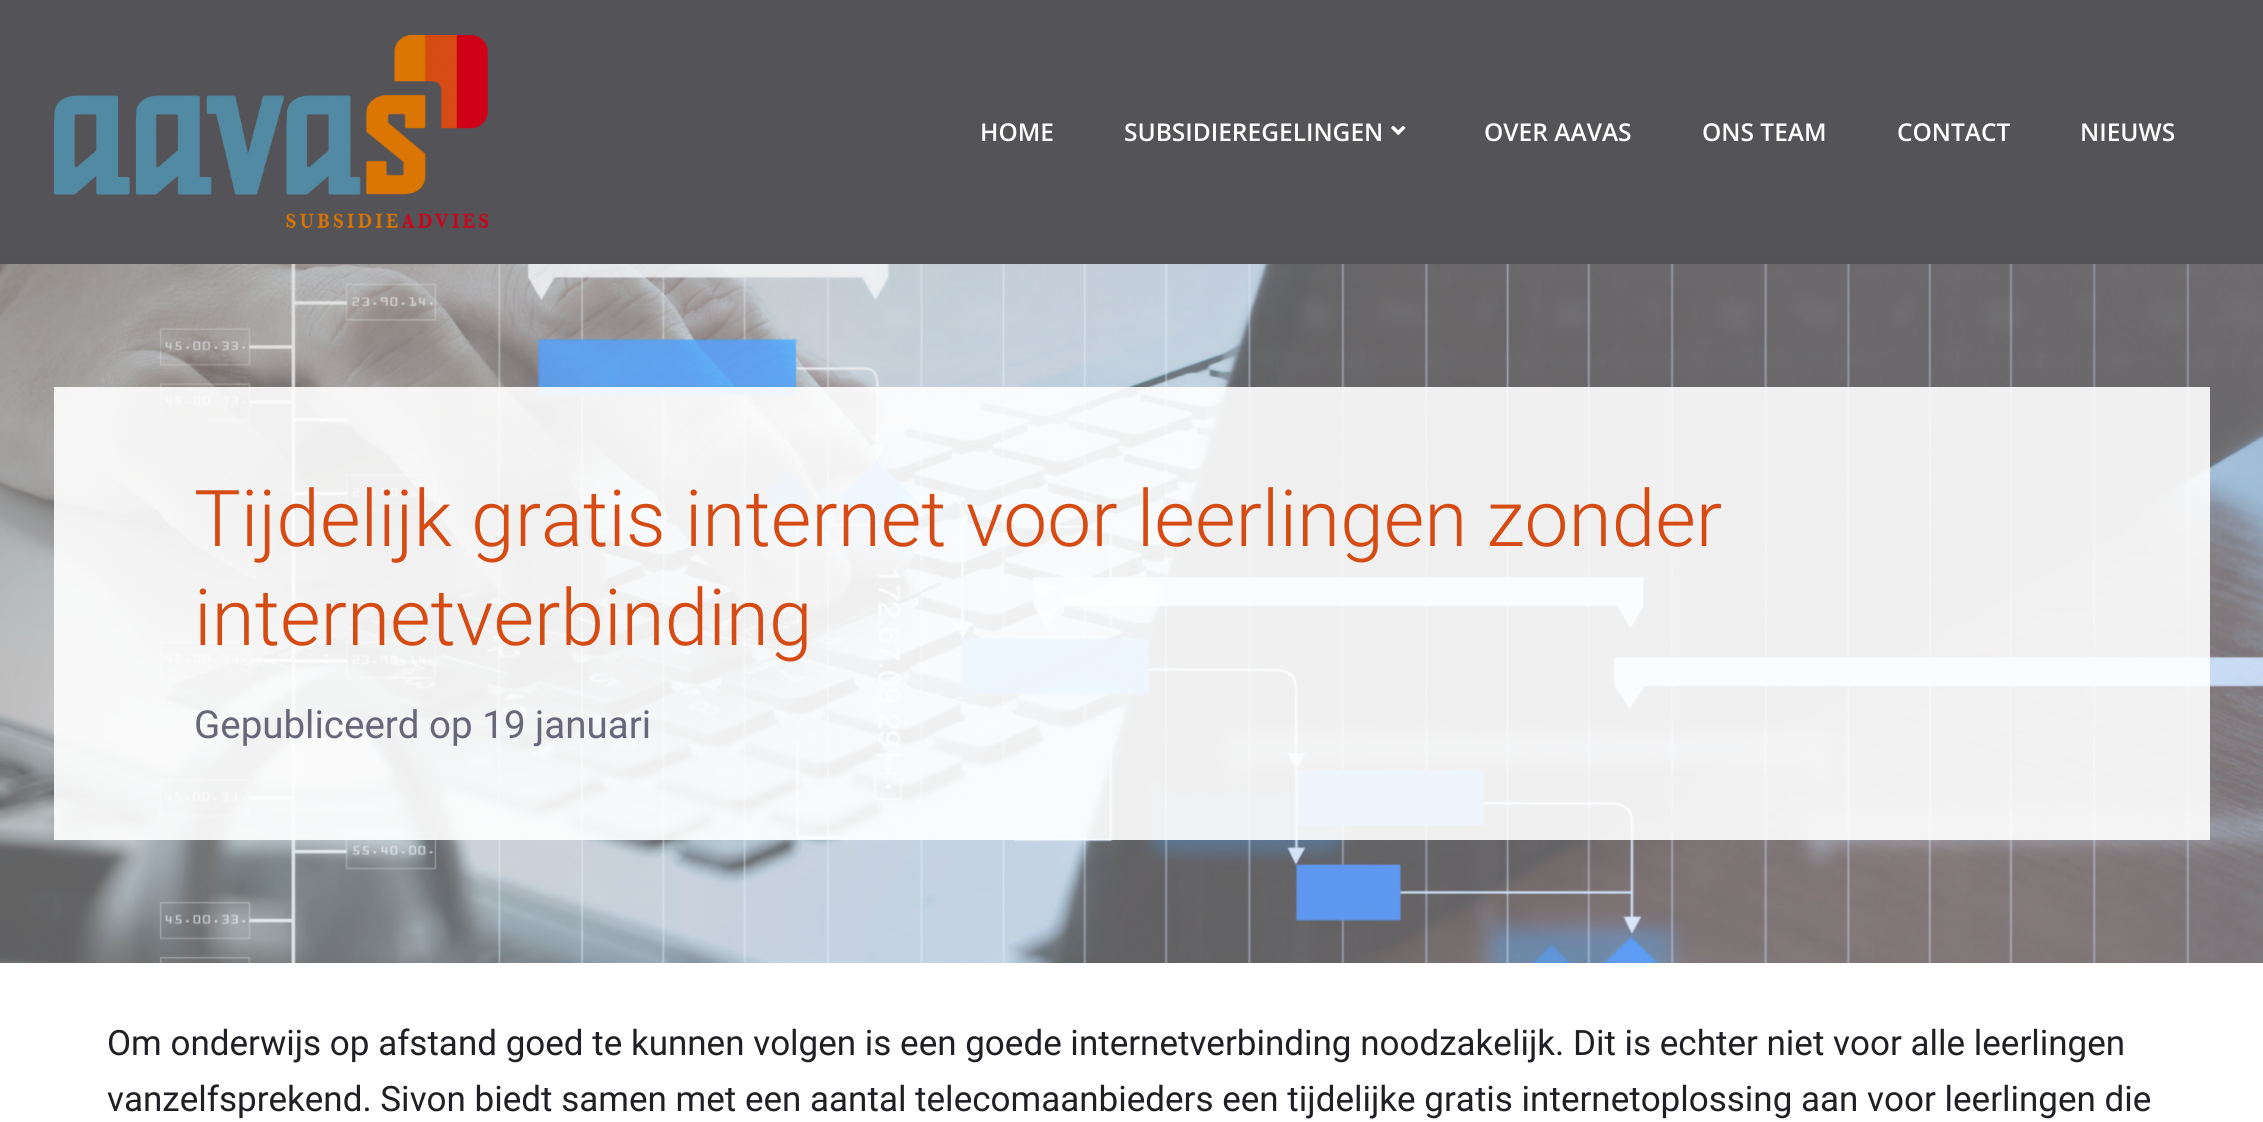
import math
import cairo

surface = cairo.ImageSurface(cairo.FORMAT_RGB24, 2263, 1122)
ctx = cairo.Context(surface)
options = cairo.FontOptions()
options.set_hint_metrics(cairo.HINT_METRICS_OFF)
options.set_hint_style(cairo.HINT_STYLE_NONE)
ctx.set_font_options(options)
ctx.set_miter_limit(4)


def set_color(code):
    ctx.set_source_rgb(*(v / 255 for v in bytes.fromhex(code[-6:])))


def draw_text(x, y, s, family, size, color, bold=False, italic=False):
    ctx.select_font_face(family, cairo.FONT_SLANT_ITALIC if italic else cairo.FONT_SLANT_NORMAL, cairo.FONT_WEIGHT_BOLD if bold else cairo.FONT_WEIGHT_NORMAL)
    ctx.set_font_size(size)
    set_color(color)
    ctx.move_to(x, y)
    ctx.show_text(s)


def fill_rect(x, y, w, h, color):
    set_color(color)
    ctx.rectangle(x, y, w, h)
    ctx.fill()


def rounded_rect(x, y, w, h, r):
    ctx.new_sub_path()
    for i, (u, v) in enumerate([(x + w - r, y + h - r), (x + r, y + h - r), (x + r, y + r), (x + w - r, y + r)]):
        ctx.arc(u, v, r, i * math.pi / 2, (i + 1) * math.pi / 2)
    ctx.close_path()


def draw_shadow(x, y, w, h, r, blur, alpha):
    ctx.push_group_with_content(cairo.CONTENT_ALPHA)
    ctx.set_operator(cairo.OPERATOR_SOURCE)
    for i in range(15, -16, -2):
        e = blur * i / 6
        if min(w, h) + 2 * e > 0:
            ctx.set_source_rgba(0, 0, 0, alpha * math.erfc((i - 1) / 8.5) / 2)
            rounded_rect(x - e, y - e, w + 2 * e, h + 2 * e, max(0, min(r + e + blur * .6, min(w, h) / 2 + e)))
            ctx.fill()
    ctx.mask(ctx.pop_group())


def draw_image(path, x, y, w, h):
    ctx.save()
    ctx.set_source_surface(cairo.ImageSurface.create_from_png(path), x, y)
    ctx.rectangle(x, y, w, h)
    ctx.fill()
    ctx.restore()


set_color("#545357")
ctx.paint()
draw_image("assets/img1.png", 54, 35, 434, 193)
draw_text(980, 141, "HOME", "Open Sans SemiBold", 24.5, "#ffffff")
draw_text(1124, 141, "SUBSIDIEREGELINGEN", "Open Sans SemiBold", 24.5, "#ffffff")
draw_image("assets/img2.png", 1391, 125, 15, 10)
draw_text(1484, 141, "OVER AAVAS", "Open Sans SemiBold", 24.5, "#ffffff")
draw_text(1702, 141, "ONS TEAM", "Open Sans SemiBold", 24.5, "#ffffff")
draw_text(1897, 141, "CONTACT", "Open Sans SemiBold", 24.5, "#ffffff")
draw_text(2080, 141, "NIEUWS", "Open Sans SemiBold", 24.5, "#ffffff")
set_color("#000000")
draw_shadow(-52, 282, 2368, 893, 0, 17.5, 0.16)
fill_rect(0, 963, 2263, 159, "#ffffff")
draw_image("assets/img3.png", 0, 264, 2263, 699)
ctx.set_source_rgba(1, 1, 1, 0.9)
ctx.rectangle(54, 387, 2156, 453)
ctx.fill()
draw_text(194, 546, "Tijdelijk gratis internet voor leerlingen zonder", "Roboto Light", 78.4, "#d54b13")
draw_text(194, 645, "internetverbinding", "Roboto Light", 78.4, "#d54b13")
draw_text(194, 738, "Gepubliceerd op 19 januari", "Roboto", 38.5, "#6a667a")
draw_text(107, 1055, "Om onderwijs op afstand goed te kunnen volgen is een goede internetverbinding noodzakelijk. Dit is echter niet voor alle leerlingen", "Roboto", 35, "#201f25")
draw_text(107, 1111, "vanzelfsprekend. Sivon biedt samen met een aantal telecomaanbieders een tijdelijke gratis internetoplossing aan voor leerlingen die", "Roboto", 35, "#201f25")
surface.write_to_png("output.png")
